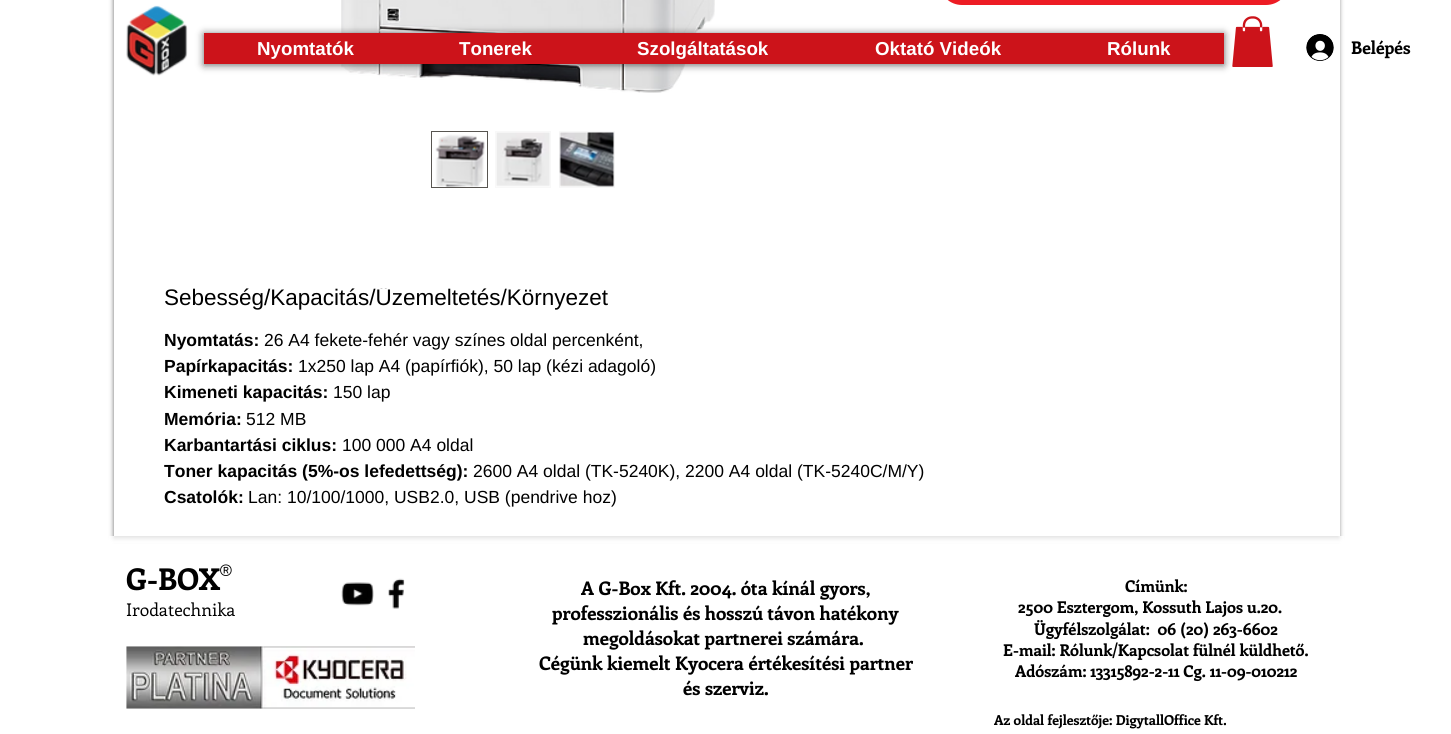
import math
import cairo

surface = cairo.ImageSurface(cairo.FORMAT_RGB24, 1451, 734)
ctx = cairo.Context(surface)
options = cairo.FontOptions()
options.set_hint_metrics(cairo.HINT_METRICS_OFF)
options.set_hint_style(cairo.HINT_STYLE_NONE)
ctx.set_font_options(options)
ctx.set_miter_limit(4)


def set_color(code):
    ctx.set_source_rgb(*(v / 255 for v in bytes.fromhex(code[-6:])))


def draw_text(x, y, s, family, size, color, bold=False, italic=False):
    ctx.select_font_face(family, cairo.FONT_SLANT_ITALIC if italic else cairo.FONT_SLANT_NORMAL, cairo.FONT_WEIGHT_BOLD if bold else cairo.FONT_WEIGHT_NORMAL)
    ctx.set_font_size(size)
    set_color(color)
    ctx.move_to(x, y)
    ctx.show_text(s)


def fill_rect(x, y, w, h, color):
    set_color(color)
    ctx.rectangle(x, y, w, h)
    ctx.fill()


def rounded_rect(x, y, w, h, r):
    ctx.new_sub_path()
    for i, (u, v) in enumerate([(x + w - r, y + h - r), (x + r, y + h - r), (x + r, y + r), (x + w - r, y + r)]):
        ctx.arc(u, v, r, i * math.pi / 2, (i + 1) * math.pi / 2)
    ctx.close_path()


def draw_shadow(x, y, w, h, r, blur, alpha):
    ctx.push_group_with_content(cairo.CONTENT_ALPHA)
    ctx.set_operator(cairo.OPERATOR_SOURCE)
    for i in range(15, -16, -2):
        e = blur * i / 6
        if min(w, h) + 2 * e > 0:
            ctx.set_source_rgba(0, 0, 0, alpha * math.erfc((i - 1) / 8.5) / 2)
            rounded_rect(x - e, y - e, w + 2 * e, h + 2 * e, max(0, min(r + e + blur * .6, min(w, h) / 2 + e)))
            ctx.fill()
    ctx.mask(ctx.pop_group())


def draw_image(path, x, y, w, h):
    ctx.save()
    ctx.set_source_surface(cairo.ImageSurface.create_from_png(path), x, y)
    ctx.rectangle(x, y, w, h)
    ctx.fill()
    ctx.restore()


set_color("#ffffff")
ctx.paint()
set_color("#000000")
draw_shadow(114, -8, 1225, 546, 0, 2.5, 0.6)
fill_rect(114, 0, 1226, 536, "#ffffff")
draw_image("assets/img1.png", 126, 5, 62, 71)
draw_image("assets/img4.png", 341, 0, 374, 93)
set_color("#000000")
draw_shadow(204, 34, 1020, 31, 0, 4, 0.6)
fill_rect(204, 33, 1020, 31, "#cc131a")
draw_text(257, 55, "Nyomtatók", "Liberation Sans", 18.75, "#ffffff", bold=True)
draw_text(459, 55, "Tonerek", "Liberation Sans", 18.75, "#ffffff", bold=True)
draw_text(637, 55, "Szolgáltatások", "Liberation Sans", 18.75, "#ffffff", bold=True)
draw_text(875, 55, "Oktató Videók", "Liberation Sans", 18.75, "#ffffff", bold=True)
draw_text(1107, 55, "Rólunk", "Liberation Sans", 18.75, "#ffffff", bold=True)
draw_image("assets/img2.png", 1232, 16, 41, 51)
draw_image("assets/img3.png", 1306, 34, 28, 27)
draw_text(1351, 54, "Belépés", "Enriqueta", 17.5, "#000000", bold=True)
set_color("#ed1c24")
rounded_rect(939, -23, 350, 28, 23)
ctx.fill()
ctx.rectangle(431.5, 131.5, 56, 56)
set_color("#585551")
ctx.set_line_width(1)
ctx.stroke()
draw_image("assets/img5.png", 435, 134, 50, 53)
ctx.rectangle(495.5, 131.5, 55, 56)
set_color("#f8f8f8")
ctx.stroke()
draw_image("assets/img6.png", 496, 132, 54, 55)
ctx.rectangle(559.5, 131.5, 55, 56)
ctx.stroke()
draw_image("assets/img7.png", 559, 132, 56, 55)
ctx.save()
ctx.rectangle(164, 288, 1125, 223)
ctx.clip()
draw_text(164, 305, "Sebesség/Kapacitás/Üzemeltetés/Környezet", "Liberation Sans", 22.5, "#000000")
ctx.restore()
draw_text(164, 346, "Nyomtatás:", "Liberation Sans", 17.5, "#000000", bold=True)
draw_text(264, 346, "26 A4 fekete-fehér vagy színes oldal percenként,", "Liberation Sans", 17.5, "#000000")
draw_text(164, 372, "Papírkapacitás:", "Liberation Sans", 17.5, "#000000", bold=True)
draw_text(298, 372, "1x250 lap A4 (papírfiók), 50 lap (kézi adagoló)", "Liberation Sans", 17.5, "#000000")
draw_text(164, 398, "Kimeneti kapacitás:", "Liberation Sans", 17.5, "#000000", bold=True)
draw_text(333, 398, "150 lap", "Liberation Sans", 17.5, "#000000")
draw_text(164, 425, "Memória:", "Liberation Sans", 17.5, "#000000", bold=True)
draw_text(246, 425, "512 MB", "Liberation Sans", 17.5, "#000000")
draw_text(164, 451, "Karbantartási ciklus:", "Liberation Sans", 17.5, "#000000", bold=True)
draw_text(342, 451, "100 000 A4 oldal", "Liberation Sans", 17.5, "#000000")
draw_text(164, 477, "Toner kapacitás (5%-os lefedettség):", "Liberation Sans", 17.5, "#000000", bold=True)
draw_text(473, 477, "2600 A4 oldal (TK-5240K), 2200 A4 oldal (TK-5240C/M/Y)", "Liberation Sans", 17.5, "#000000")
draw_text(164, 503, "Csatolók:", "Liberation Sans", 17.5, "#000000", bold=True)
draw_text(248, 503, "Lan: 10/100/1000, USB2.0, USB (pendrive hoz)", "Liberation Sans", 17.5, "#000000")
ctx.set_source_rgba(1, 1, 1, 0.79)
ctx.rectangle(109, 536, 1235, 7)
ctx.fill()
draw_text(126, 590, "G-BOX", "Enriqueta", 30, "#000000", bold=True)
draw_text(219, 585, "®", "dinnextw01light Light", 30, "#000000")
draw_image("assets/img8.png", 341, 582, 33, 24)
draw_image("assets/img9.png", 388, 578, 17, 31)
draw_text(581, 595, "A G-Box Kft. 2004. óta kínál gyors,", "Enriqueta", 18.75, "#000000", bold=True)
draw_text(552, 620, "professzionális és hosszú távon hatékony", "Enriqueta", 18.75, "#000000", bold=True)
draw_text(583, 645, "megoldásokat partnerei számára.", "Enriqueta", 18.75, "#000000", bold=True)
draw_text(539, 670, "Cégünk kiemelt Kyocera értékesítési partner", "Enriqueta", 18.75, "#000000", bold=True)
draw_text(683, 695, "és szerviz.", "Enriqueta", 18.75, "#000000", bold=True)
draw_text(1125, 592, "Címünk:", "Enriqueta", 16.25, "#000000", bold=True)
draw_text(1018, 613, "2500 Esztergom, Kossuth Lajos u.20.", "Enriqueta", 16.25, "#000000", bold=True)
draw_text(1034, 635, "Ügyfélszolgálat:  06 (20) 263-6602", "Enriqueta", 16.25, "#000000", bold=True)
draw_text(1003, 656, "E-mail: Rólunk/Kapcsolat fülnél küldhető.", "Enriqueta", 16.25, "#000000", bold=True)
draw_text(1015, 677, "Adószám: 13315892-2-11 Cg. 11-09-010212", "Enriqueta", 16.25, "#000000", bold=True)
draw_text(126, 616, "Irodatechnika", "Enriqueta", 17.5, "#000000")
draw_image("assets/img10.png", 126, 646, 289, 63)
draw_text(994, 725, "Az oldal fejlesztője: DigytallOffice Kft.", "Enriqueta", 13.75, "#000000", bold=True)
surface.write_to_png("output.png")
